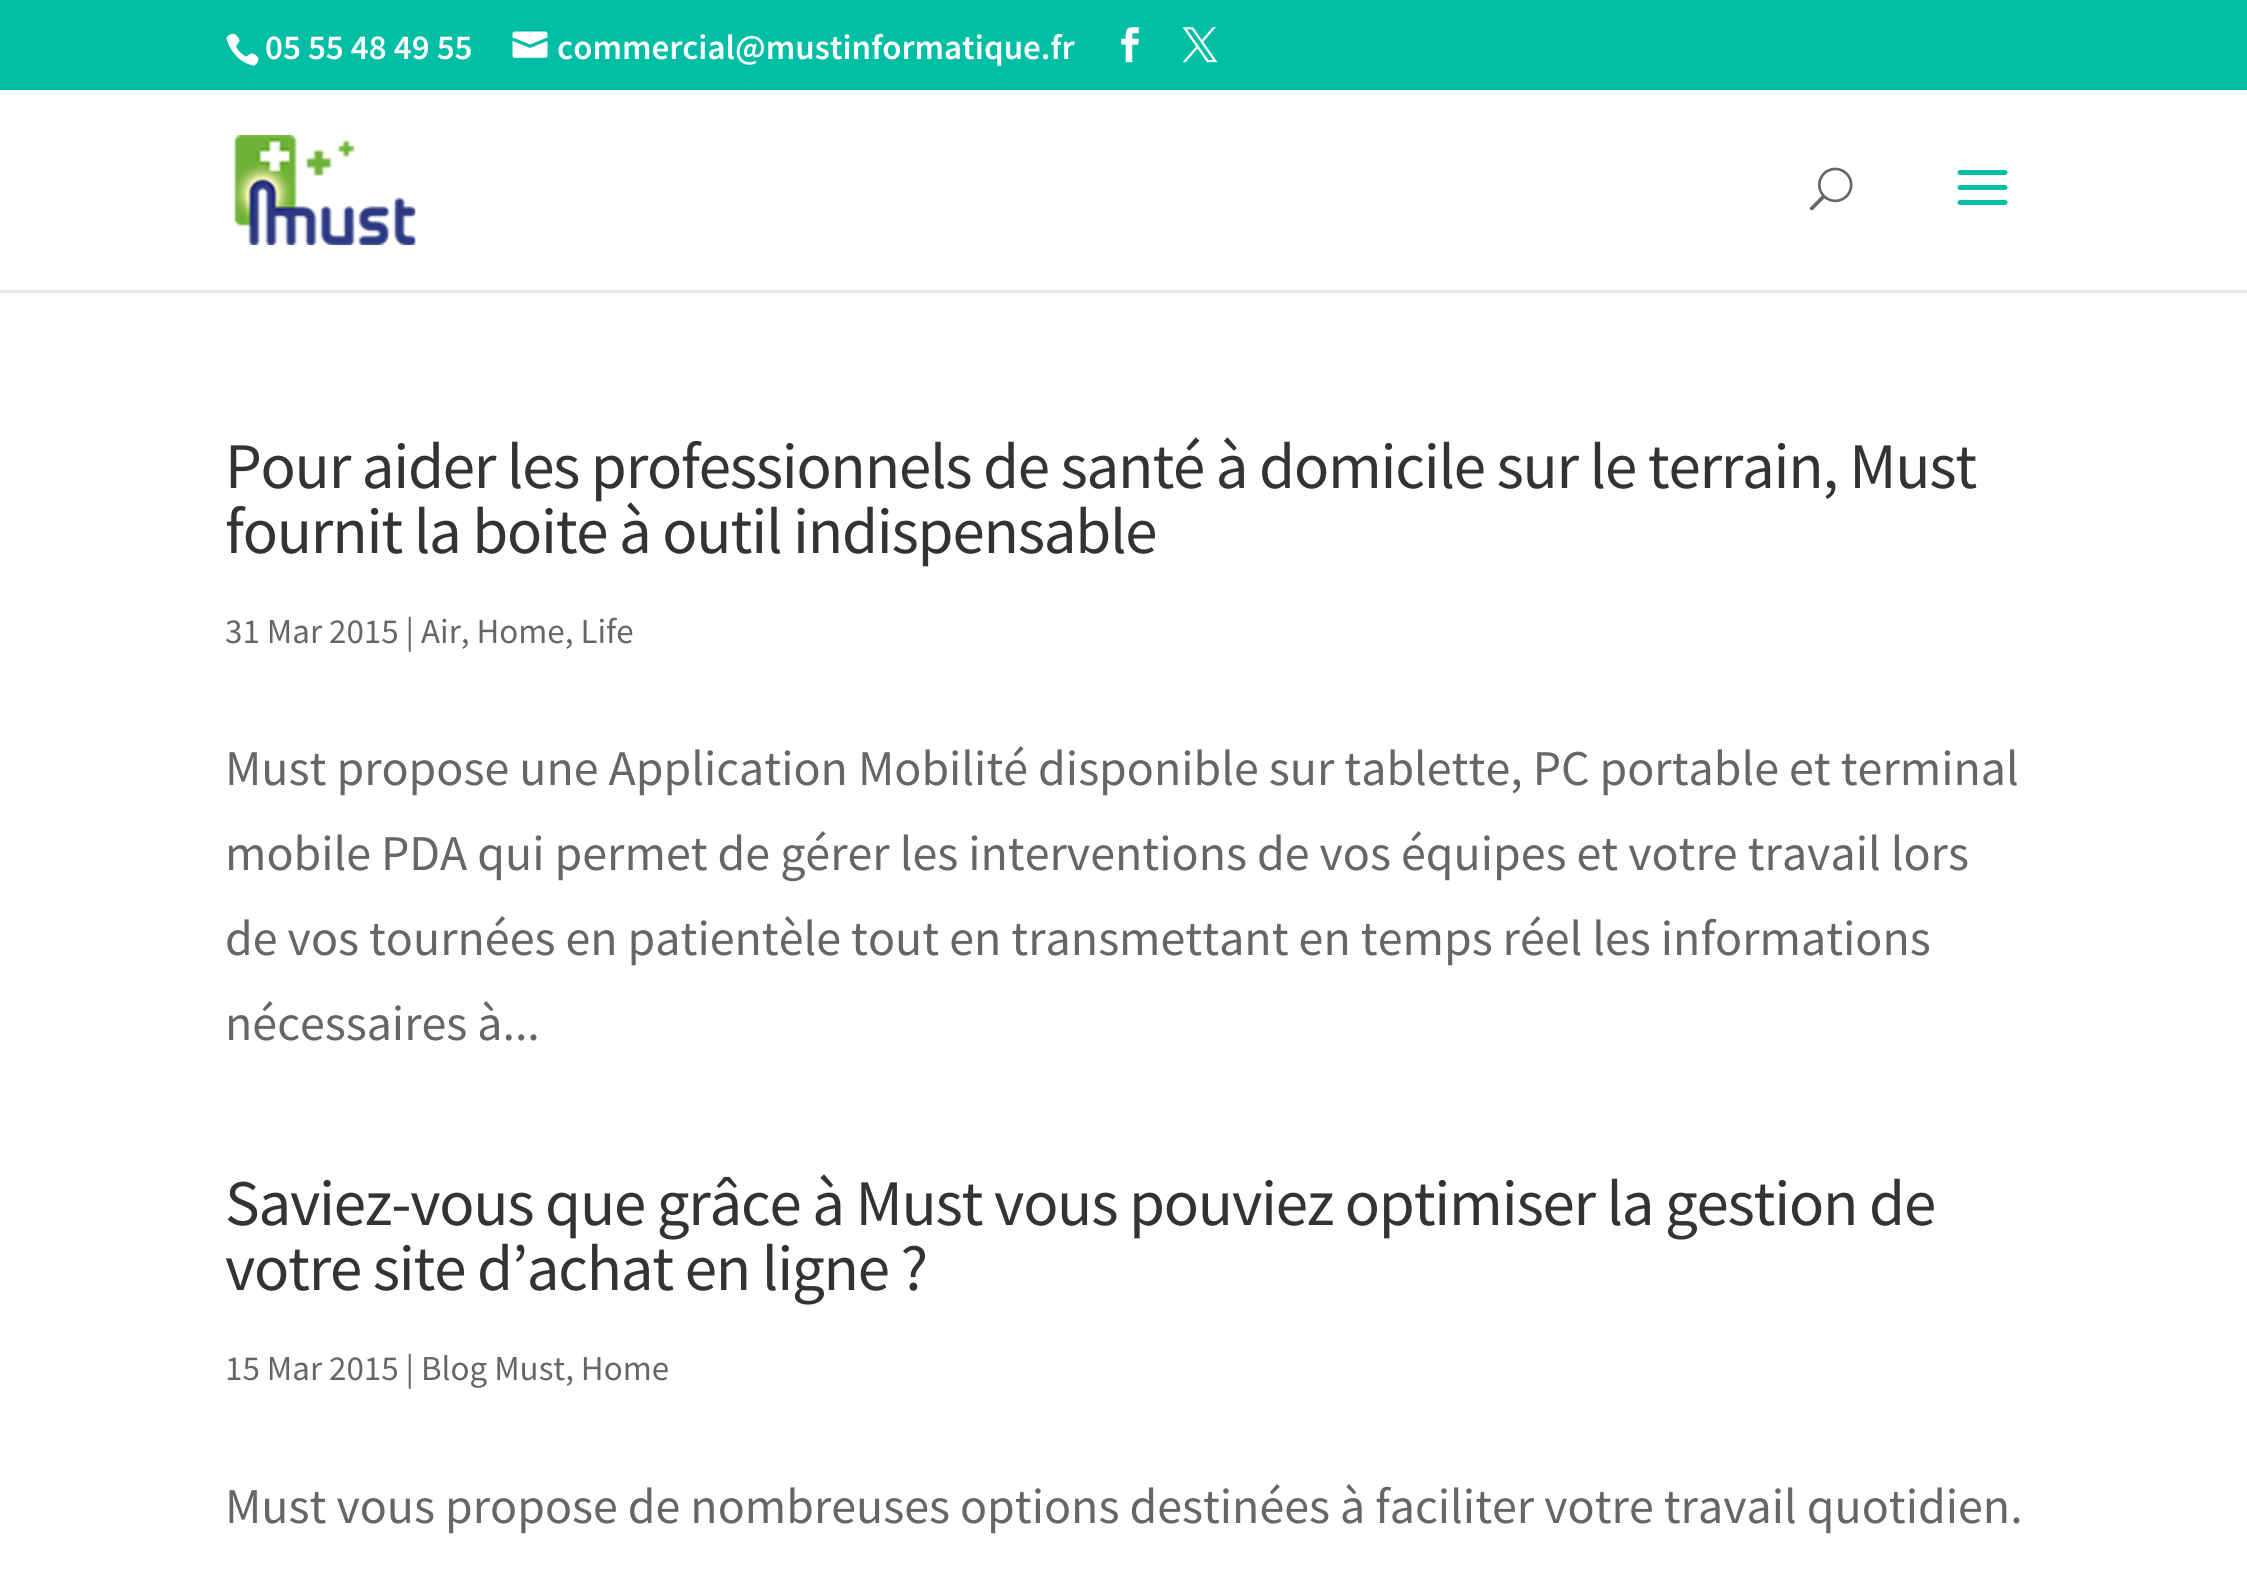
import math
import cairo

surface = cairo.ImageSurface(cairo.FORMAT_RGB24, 2247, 1581)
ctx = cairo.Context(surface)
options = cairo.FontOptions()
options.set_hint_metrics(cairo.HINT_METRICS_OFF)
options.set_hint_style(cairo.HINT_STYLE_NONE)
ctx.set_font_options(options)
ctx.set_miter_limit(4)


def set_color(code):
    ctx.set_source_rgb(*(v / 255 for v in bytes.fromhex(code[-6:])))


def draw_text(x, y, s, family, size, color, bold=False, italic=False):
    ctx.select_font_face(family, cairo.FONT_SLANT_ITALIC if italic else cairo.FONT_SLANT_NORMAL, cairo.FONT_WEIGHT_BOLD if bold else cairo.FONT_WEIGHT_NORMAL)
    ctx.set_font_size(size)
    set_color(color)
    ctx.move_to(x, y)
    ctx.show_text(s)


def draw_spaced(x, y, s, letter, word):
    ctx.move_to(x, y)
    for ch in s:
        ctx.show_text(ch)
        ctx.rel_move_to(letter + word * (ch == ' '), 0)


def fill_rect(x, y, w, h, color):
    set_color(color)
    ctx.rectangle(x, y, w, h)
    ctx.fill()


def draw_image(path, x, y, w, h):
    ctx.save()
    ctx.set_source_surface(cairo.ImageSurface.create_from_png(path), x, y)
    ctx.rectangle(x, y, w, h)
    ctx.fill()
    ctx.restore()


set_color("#ffffff")
ctx.paint()
fill_rect(0, 0, 2247, 90, "#00bfa5")
draw_image("assets/img1.png", 226, 33, 33, 33)
draw_text(265, 59, "05 55 48 49 55", "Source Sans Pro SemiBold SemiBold", 35, "#ffffff")
draw_image("assets/img2.png", 512, 31, 36, 27)
draw_text(557, 59, "commercial@mustinformatique.fr", "Source Sans Pro SemiBold SemiBold", 35, "#ffffff")
draw_image("assets/img3.png", 1121, 27, 18, 36)
draw_image("assets/img4.png", 1182, 27, 36, 36)
set_color("#e6e6e6")
ctx.new_path()
ctx.move_to(0, 290)
ctx.line_to(0, 293)
ctx.line_to(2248, 293)
ctx.line_to(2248, 93)
ctx.line_to(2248, 290)
ctx.close_path()
ctx.fill()
draw_image("assets/img5.png", 234, 135, 182, 110)
draw_image("assets/img6.png", 1809, 167, 44, 44)
draw_image("assets/img7.png", 1957, 170, 51, 35)
ctx.select_font_face("Source Sans Pro")
ctx.set_font_size(65)
set_color("#333333")
draw_spaced(225, 488, "Pour aider les professionnels de santé à domicile sur le terrain, Must", -1.25, 0)
draw_spaced(225, 553, "fournit la boite à outil indispensable", -1.25, 0)
draw_text(225, 643, "31 Mar 2015 | Air, Home, Life", "Source Sans Pro", 35, "#666666")
draw_text(225, 785, "Must propose une Application Mobilité disponible sur tablette, PC portable et terminal", "Source Sans Pro", 50, "#666666")
draw_text(225, 870, "mobile PDA qui permet de gérer les interventions de vos équipes et votre travail lors", "Source Sans Pro", 50, "#666666")
draw_text(225, 955, "de vos tournées en patientèle tout en transmettant en temps réel les informations", "Source Sans Pro", 50, "#666666")
draw_text(225, 1040, "nécessaires à...", "Source Sans Pro", 50, "#666666")
ctx.set_font_size(65)
set_color("#333333")
draw_spaced(225, 1225, "Saviez-vous que grâce à Must vous pouviez optimiser la gestion de", -1.25, 0)
draw_spaced(225, 1290, "votre site d’achat en ligne ?", -1.25, 0)
draw_text(225, 1380, "15 Mar 2015 | Blog Must, Home", "Source Sans Pro", 35, "#666666")
draw_text(225, 1523, "Must vous propose de nombreuses options destinées à faciliter votre travail quotidien.", "Source Sans Pro", 50, "#666666")
surface.write_to_png("output.png")
